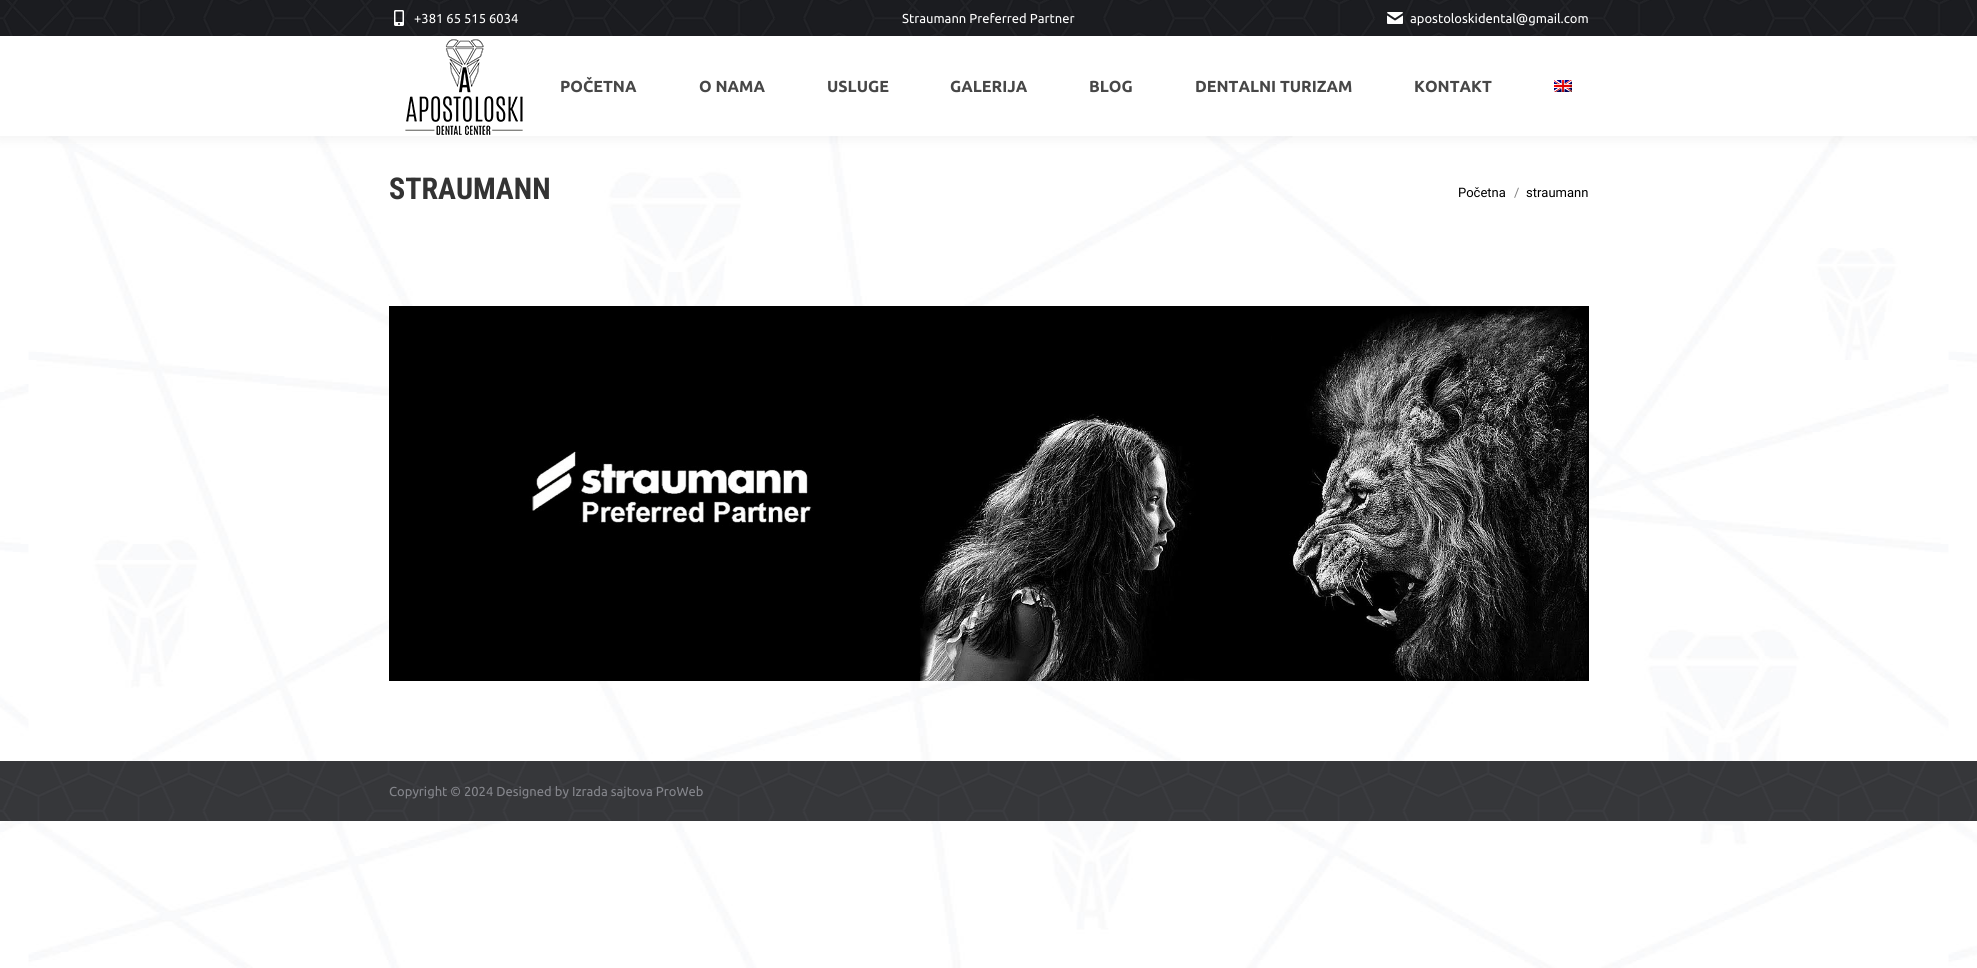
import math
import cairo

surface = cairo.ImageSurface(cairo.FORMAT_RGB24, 1977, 968)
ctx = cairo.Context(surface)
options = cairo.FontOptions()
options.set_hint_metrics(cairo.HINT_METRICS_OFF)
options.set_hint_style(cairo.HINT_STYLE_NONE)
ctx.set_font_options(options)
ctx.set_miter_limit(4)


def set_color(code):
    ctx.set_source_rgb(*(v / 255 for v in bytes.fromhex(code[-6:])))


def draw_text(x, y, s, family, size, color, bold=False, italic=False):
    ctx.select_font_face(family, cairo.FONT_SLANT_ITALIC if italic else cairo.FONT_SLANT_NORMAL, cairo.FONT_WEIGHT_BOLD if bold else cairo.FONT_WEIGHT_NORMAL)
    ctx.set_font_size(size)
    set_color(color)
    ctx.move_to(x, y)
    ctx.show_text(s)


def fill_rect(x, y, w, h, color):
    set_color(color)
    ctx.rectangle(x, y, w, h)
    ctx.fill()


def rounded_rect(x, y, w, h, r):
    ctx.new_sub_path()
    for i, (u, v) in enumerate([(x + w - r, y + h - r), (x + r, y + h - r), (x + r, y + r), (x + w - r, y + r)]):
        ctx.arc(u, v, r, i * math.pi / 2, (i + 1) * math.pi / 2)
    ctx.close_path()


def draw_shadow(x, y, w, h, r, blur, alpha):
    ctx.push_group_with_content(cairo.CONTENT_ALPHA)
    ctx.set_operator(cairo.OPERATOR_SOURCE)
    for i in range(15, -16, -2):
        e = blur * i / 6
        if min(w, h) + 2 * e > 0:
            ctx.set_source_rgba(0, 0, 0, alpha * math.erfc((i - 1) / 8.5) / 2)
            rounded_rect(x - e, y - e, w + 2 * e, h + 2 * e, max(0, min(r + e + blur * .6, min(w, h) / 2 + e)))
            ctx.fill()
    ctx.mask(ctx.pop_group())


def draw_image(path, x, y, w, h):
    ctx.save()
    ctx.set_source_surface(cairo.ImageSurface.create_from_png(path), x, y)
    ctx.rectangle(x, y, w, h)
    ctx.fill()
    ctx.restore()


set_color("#ffffff")
ctx.paint()
draw_image("assets/img6.png", 0, 136, 1977, 832)
set_color("#000000")
draw_shadow(-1, -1, 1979, 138, 0, 7.5, 0.07)
fill_rect(0, 36, 1977, 100, "#ffffff")
fill_rect(0, 0, 1977, 36, "#1a1c20")
draw_image("assets/img1.png", 0, 0, 1975, 36)
draw_image("assets/img2.png", 394, 10, 10, 16)
draw_text(414, 23, "+381 65 515 6034", "Ubuntu", 13, "#ffffff")
draw_text(902, 23, "Straumann Preferred Partner", "Ubuntu", 13, "#ffffff")
draw_image("assets/img3.png", 1387, 12, 16, 12)
draw_text(1410, 23, "apostoloskidental@gmail.com", "Ubuntu", 13, "#ffffff")
draw_image("assets/img4.png", 405, 39, 118, 96)
draw_text(560, 92, "POČETNA", "Ubuntu", 16, "#474747", bold=True)
draw_text(699, 92, "O NAMA", "Ubuntu", 16, "#474747", bold=True)
draw_text(827, 92, "USLUGE", "Ubuntu", 16, "#474747", bold=True)
draw_text(950, 92, "GALERIJA", "Ubuntu", 16, "#474747", bold=True)
draw_text(1089, 92, "BLOG", "Ubuntu", 16, "#474747", bold=True)
draw_text(1195, 92, "DENTALNI TURIZAM", "Ubuntu", 16, "#474747", bold=True)
draw_text(1414, 92, "KONTAKT", "Ubuntu", 16, "#474747", bold=True)
draw_image("assets/img5.png", 1554, 80, 18, 12)
draw_text(389, 199, "STRAUMANN", "Roboto Condensed", 30, "#333333", bold=True)
draw_text(1458, 197, "Početna", "Roboto", 13, "#000000")
draw_text(1514, 197, "/", "Roboto", 13, "#808080")
draw_text(1526, 197, "straumann", "Roboto", 13, "#000000")
draw_image("assets/img7.png", 389, 306, 1200, 375)
fill_rect(0, 761, 1977, 60, "#1a1c20")
draw_image("assets/img8.png", 0, 761, 1977, 60)
ctx.set_source_rgba(1, 1, 1, 0.12)
ctx.rectangle(0, 761, 1977, 60)
ctx.fill()
draw_text(389, 796, "Copyright © 2024 Designed by Izrada sajtova ProWeb", "Ubuntu", 13, "#85868c")
surface.write_to_png("output.png")
